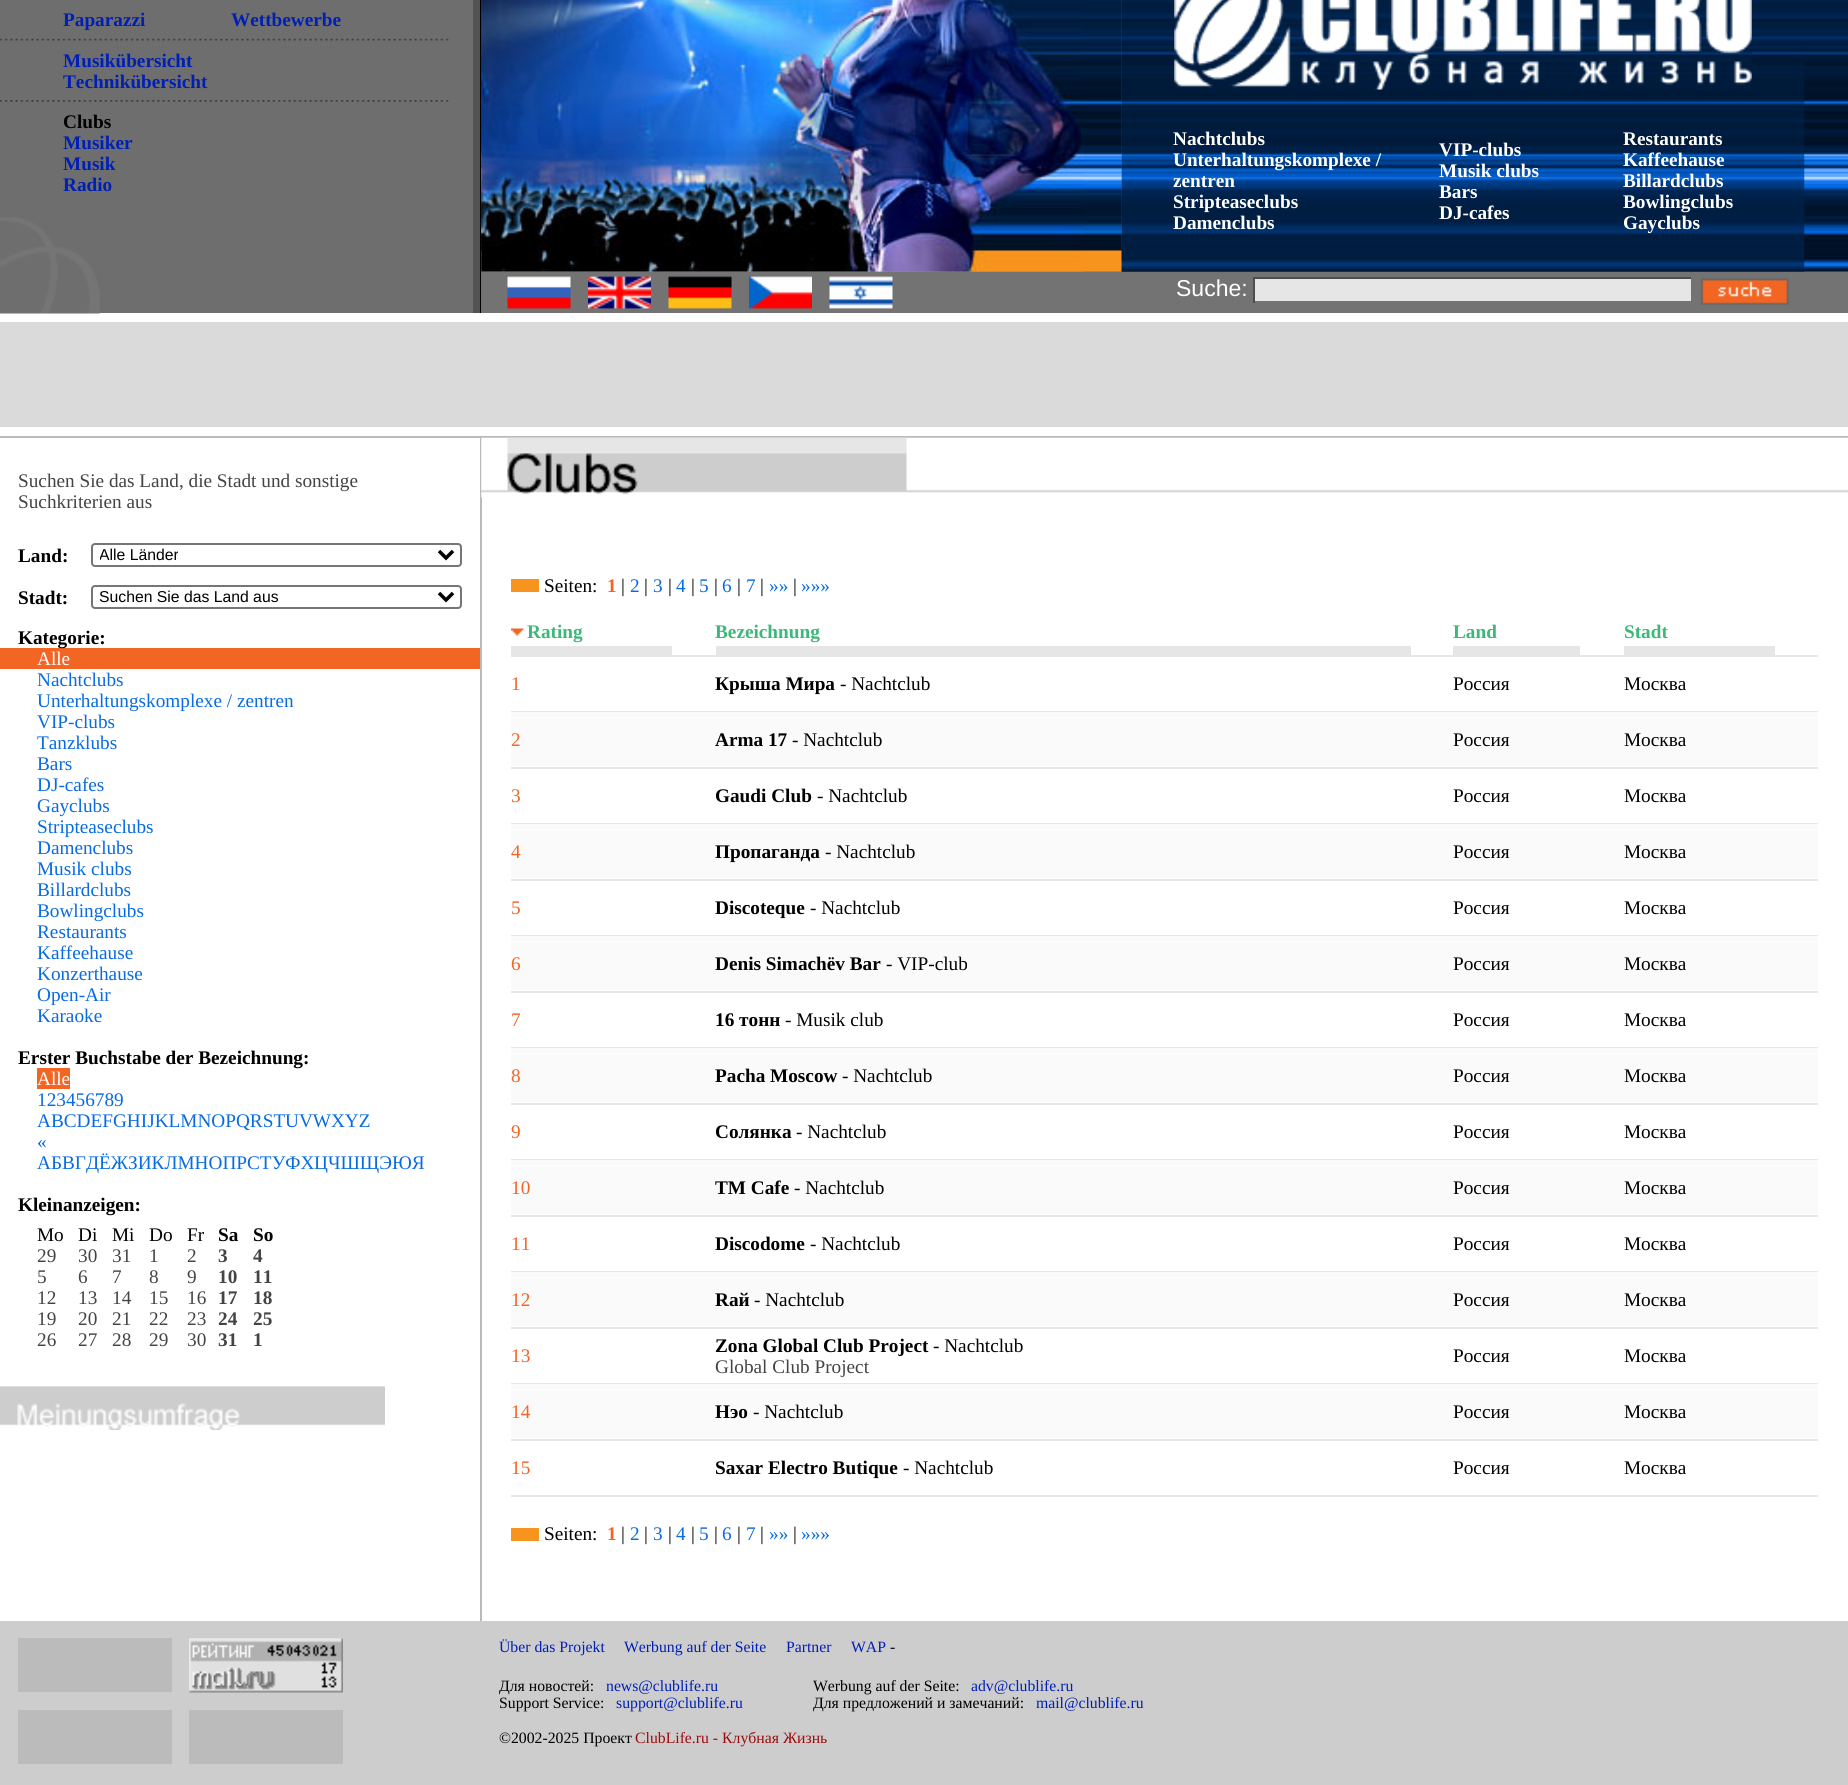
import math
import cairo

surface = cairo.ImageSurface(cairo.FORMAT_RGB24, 1848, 1785)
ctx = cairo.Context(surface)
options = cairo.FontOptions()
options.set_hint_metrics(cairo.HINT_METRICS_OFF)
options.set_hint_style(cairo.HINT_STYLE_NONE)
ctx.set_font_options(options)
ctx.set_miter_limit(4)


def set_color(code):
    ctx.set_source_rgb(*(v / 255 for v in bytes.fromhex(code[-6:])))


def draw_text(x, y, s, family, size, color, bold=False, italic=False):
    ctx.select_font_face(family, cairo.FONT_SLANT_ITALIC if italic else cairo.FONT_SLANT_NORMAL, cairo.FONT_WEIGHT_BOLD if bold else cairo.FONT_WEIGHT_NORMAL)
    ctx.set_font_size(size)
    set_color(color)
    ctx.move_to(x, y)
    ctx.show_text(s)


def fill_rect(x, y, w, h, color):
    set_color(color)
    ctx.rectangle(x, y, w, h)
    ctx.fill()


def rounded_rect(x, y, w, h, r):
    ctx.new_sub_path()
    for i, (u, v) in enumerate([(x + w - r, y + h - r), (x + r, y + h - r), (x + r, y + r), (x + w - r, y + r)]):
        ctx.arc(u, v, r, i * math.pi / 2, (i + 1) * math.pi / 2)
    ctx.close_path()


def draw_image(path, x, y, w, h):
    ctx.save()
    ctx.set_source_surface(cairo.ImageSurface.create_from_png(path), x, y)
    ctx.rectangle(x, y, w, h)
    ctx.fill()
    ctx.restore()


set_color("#ffffff")
ctx.paint()
fill_rect(0, 0, 473, 313, "#6e6e6e")
draw_image("assets/img1.png", 0, 217, 100, 97)
draw_text(63, 26, "Paparazzi", "Liberation Serif", 19.25, "#001fb5", bold=True)
draw_text(231, 26, "Wettbewerbe", "Liberation Serif", 19.25, "#001fb5", bold=True)
draw_image("assets/img2.png", 0, 38, 449, 3)
draw_text(63, 67, "Musikübersicht", "Liberation Serif", 19.25, "#001fb5", bold=True)
draw_text(63, 88, "Technikübersicht", "Liberation Serif", 19.25, "#001fb5", bold=True)
draw_image("assets/img3.png", 0, 100, 449, 2)
draw_text(63, 128, "Clubs", "Liberation Serif", 19.25, "#000000", bold=True)
draw_text(63, 149, "Musiker", "Liberation Serif", 19.25, "#001fb5", bold=True)
draw_text(63, 170, "Musik", "Liberation Serif", 19.25, "#001fb5", bold=True)
draw_text(63, 191, "Radio", "Liberation Serif", 19.25, "#001fb5", bold=True)
fill_rect(473, 0, 7, 313, "#535353")
fill_rect(480, 0, 1, 313, "#000000")
fill_rect(481, 0, 641, 313, "#737373")
draw_image("assets/img4.png", 481, 0, 641, 272)
draw_image("assets/img5.png", 481, 0, 603, 272)
draw_image("assets/img6.png", 507, 276, 64, 33)
draw_image("assets/img7.png", 588, 276, 63, 33)
draw_image("assets/img8.png", 668, 276, 64, 33)
draw_image("assets/img9.png", 749, 276, 63, 33)
draw_image("assets/img10.png", 829, 276, 64, 33)
fill_rect(1122, 271, 726, 42, "#737373")
draw_image("assets/img11.png", 1121, 0, 727, 272)
draw_image("assets/img12.png", 1121, 0, 684, 272)
draw_image("assets/img13.png", 1174, 0, 578, 90)
draw_text(1173, 145, "Nachtclubs", "Liberation Serif", 19.25, "#ffffff", bold=True)
draw_text(1173, 166, "Unterhaltungskomplexe /", "Liberation Serif", 19.25, "#ffffff", bold=True)
draw_text(1173, 187, "zentren", "Liberation Serif", 19.25, "#ffffff", bold=True)
draw_text(1173, 208, "Stripteaseclubs", "Liberation Serif", 19.25, "#ffffff", bold=True)
draw_text(1173, 229, "Damenclubs", "Liberation Serif", 19.25, "#ffffff", bold=True)
draw_text(1439, 156, "VIP-clubs", "Liberation Serif", 19.25, "#ffffff", bold=True)
draw_text(1439, 177, "Musik clubs", "Liberation Serif", 19.25, "#ffffff", bold=True)
draw_text(1439, 198, "Bars", "Liberation Serif", 19.25, "#ffffff", bold=True)
draw_text(1439, 219, "DJ-cafes", "Liberation Serif", 19.25, "#ffffff", bold=True)
draw_text(1623, 145, "Restaurants", "Liberation Serif", 19.25, "#ffffff", bold=True)
draw_text(1623, 166, "Kaffeehause", "Liberation Serif", 19.25, "#ffffff", bold=True)
draw_text(1623, 187, "Billardclubs", "Liberation Serif", 19.25, "#ffffff", bold=True)
draw_text(1623, 208, "Bowlingclubs", "Liberation Serif", 19.25, "#ffffff", bold=True)
draw_text(1623, 229, "Gayclubs", "Liberation Serif", 19.25, "#ffffff", bold=True)
draw_text(1176, 296, "Suche:", "Liberation Sans", 23, "#ffffff")
fill_rect(1255, 279, 436, 22, "#e6e6e6")
fill_rect(1253, 277, 439, 2, "#4d4d4d")
fill_rect(1691, 277, 1, 2, "#737373")
fill_rect(1253, 277, 2, 26, "#4d4d4d")
draw_image("assets/img14.png", 1701, 278, 88, 27)
fill_rect(0, 322, 1848, 105, "#dadada")
fill_rect(0, 436, 1848, 2, "#bababa")
draw_text(18, 487, "Suchen Sie das Land, die Stadt und sonstige", "Liberation Serif", 19.25, "#444444")
draw_text(18, 508, "Suchkriterien aus", "Liberation Serif", 19.25, "#444444")
draw_text(18, 562, "Land:", "Liberation Serif", 19.25, "#000000", bold=True)
rounded_rect(92, 544, 369, 22, 3)
set_color("#767676")
ctx.stroke()
ctx.new_path()
ctx.move_to(439, 551)
ctx.line_to(446, 558)
ctx.line_to(453, 551)
set_color("#000000")
ctx.set_line_width(3.5)
ctx.stroke()
ctx.save()
ctx.rectangle(100, 544, 332, 21)
ctx.clip()
draw_text(99, 560, "Alle Länder", "Liberation Sans", 15.75, "#000000")
ctx.restore()
draw_text(18, 604, "Stadt:", "Liberation Serif", 19.25, "#000000", bold=True)
rounded_rect(92, 586, 369, 22, 3)
set_color("#767676")
ctx.set_line_width(2)
ctx.stroke()
ctx.new_path()
ctx.move_to(439, 593)
ctx.line_to(446, 600)
ctx.line_to(453, 593)
set_color("#000000")
ctx.set_line_width(3.5)
ctx.stroke()
draw_text(99, 602, "Suchen Sie das Land aus", "Liberation Sans", 15.75, "#000000")
fill_rect(0, 648, 480, 21, "#f26522")
draw_text(18, 644, "Kategorie:", "Liberation Serif", 19.25, "#000000", bold=True)
draw_text(37, 665, "Alle", "Liberation Serif", 19.25, "#ffffff")
draw_text(37, 686, "Nachtclubs", "Liberation Serif", 19.25, "#086be2")
draw_text(37, 707, "Unterhaltungskomplexe / zentren", "Liberation Serif", 19.25, "#086be2")
draw_text(37, 728, "VIP-clubs", "Liberation Serif", 19.25, "#086be2")
draw_text(37, 749, "Tanzklubs", "Liberation Serif", 19.25, "#086be2")
draw_text(37, 770, "Bars", "Liberation Serif", 19.25, "#086be2")
draw_text(37, 791, "DJ-cafes", "Liberation Serif", 19.25, "#086be2")
draw_text(37, 812, "Gayclubs", "Liberation Serif", 19.25, "#086be2")
draw_text(37, 833, "Stripteaseclubs", "Liberation Serif", 19.25, "#086be2")
draw_text(37, 854, "Damenclubs", "Liberation Serif", 19.25, "#086be2")
draw_text(37, 875, "Musik clubs", "Liberation Serif", 19.25, "#086be2")
draw_text(37, 896, "Billardclubs", "Liberation Serif", 19.25, "#086be2")
draw_text(37, 917, "Bowlingclubs", "Liberation Serif", 19.25, "#086be2")
draw_text(37, 938, "Restaurants", "Liberation Serif", 19.25, "#086be2")
draw_text(37, 959, "Kaffeehause", "Liberation Serif", 19.25, "#086be2")
draw_text(37, 980, "Konzerthause", "Liberation Serif", 19.25, "#086be2")
draw_text(37, 1001, "Open-Air", "Liberation Serif", 19.25, "#086be2")
draw_text(37, 1022, "Karaoke", "Liberation Serif", 19.25, "#086be2")
draw_text(18, 1064, "Erster Buchstabe der Bezeichnung:", "Liberation Serif", 19.25, "#000000", bold=True)
fill_rect(37, 1068, 33, 21, "#f26522")
draw_text(37, 1085, "Alle", "Liberation Serif", 19.25, "#ffffff")
draw_text(37, 1106, "123456789", "Liberation Serif", 19.25, "#086be2")
draw_text(37, 1127, "ABCDEFGHIJKLMNOPQRST", "Liberation Serif", 19.25, "#086be2")
draw_text(285, 1127, "UVWXYZ", "Liberation Serif", 19.25, "#086be2")
draw_text(37, 1148, "«", "Liberation Serif", 19.25, "#086be2")
draw_text(37, 1169, "АБВГДЁЖЗИКЛМНОПРСТУФХ", "Liberation Serif", 19.25, "#086be2")
draw_text(314, 1169, "ЦЧШЩЭЮЯ", "Liberation Serif", 19.25, "#086be2")
draw_text(18, 1211, "Kleinanzeigen:", "Liberation Serif", 19.25, "#000000", bold=True)
draw_text(37, 1241, "Mo", "Liberation Serif", 19.25, "#000000")
draw_text(78, 1241, "Di", "Liberation Serif", 19.25, "#000000")
draw_text(112, 1241, "Mi", "Liberation Serif", 19.25, "#000000")
draw_text(149, 1241, "Do", "Liberation Serif", 19.25, "#000000")
draw_text(187, 1241, "Fr", "Liberation Serif", 19.25, "#000000")
draw_text(218, 1241, "Sa", "Liberation Serif", 19.25, "#000000", bold=True)
draw_text(253, 1241, "So", "Liberation Serif", 19.25, "#000000", bold=True)
draw_text(37, 1262, "29", "Liberation Serif", 19.25, "#444444")
draw_text(78, 1262, "30", "Liberation Serif", 19.25, "#444444")
draw_text(112, 1262, "31", "Liberation Serif", 19.25, "#444444")
draw_text(149, 1262, "1", "Liberation Serif", 19.25, "#444444")
draw_text(187, 1262, "2", "Liberation Serif", 19.25, "#444444")
draw_text(218, 1262, "3", "Liberation Serif", 19.25, "#444444", bold=True)
draw_text(253, 1262, "4", "Liberation Serif", 19.25, "#444444", bold=True)
draw_text(37, 1283, "5", "Liberation Serif", 19.25, "#444444")
draw_text(78, 1283, "6", "Liberation Serif", 19.25, "#444444")
draw_text(112, 1283, "7", "Liberation Serif", 19.25, "#444444")
draw_text(149, 1283, "8", "Liberation Serif", 19.25, "#444444")
draw_text(187, 1283, "9", "Liberation Serif", 19.25, "#444444")
draw_text(218, 1283, "10", "Liberation Serif", 19.25, "#444444", bold=True)
draw_text(253, 1283, "11", "Liberation Serif", 19.25, "#444444", bold=True)
draw_text(37, 1304, "12", "Liberation Serif", 19.25, "#444444")
draw_text(78, 1304, "13", "Liberation Serif", 19.25, "#444444")
draw_text(112, 1304, "14", "Liberation Serif", 19.25, "#444444")
draw_text(149, 1304, "15", "Liberation Serif", 19.25, "#444444")
draw_text(187, 1304, "16", "Liberation Serif", 19.25, "#444444")
draw_text(218, 1304, "17", "Liberation Serif", 19.25, "#444444", bold=True)
draw_text(253, 1304, "18", "Liberation Serif", 19.25, "#444444", bold=True)
draw_text(37, 1325, "19", "Liberation Serif", 19.25, "#444444")
draw_text(78, 1325, "20", "Liberation Serif", 19.25, "#444444")
draw_text(112, 1325, "21", "Liberation Serif", 19.25, "#444444")
draw_text(149, 1325, "22", "Liberation Serif", 19.25, "#444444")
draw_text(187, 1325, "23", "Liberation Serif", 19.25, "#444444")
draw_text(218, 1325, "24", "Liberation Serif", 19.25, "#444444", bold=True)
draw_text(253, 1325, "25", "Liberation Serif", 19.25, "#444444", bold=True)
draw_text(37, 1346, "26", "Liberation Serif", 19.25, "#444444")
draw_text(78, 1346, "27", "Liberation Serif", 19.25, "#444444")
draw_text(112, 1346, "28", "Liberation Serif", 19.25, "#444444")
draw_text(149, 1346, "29", "Liberation Serif", 19.25, "#444444")
draw_text(187, 1346, "30", "Liberation Serif", 19.25, "#444444")
draw_text(218, 1346, "31", "Liberation Serif", 19.25, "#444444", bold=True)
draw_text(253, 1346, "1", "Liberation Serif", 19.25, "#444444", bold=True)
draw_image("assets/img15.png", 0, 1386, 385, 44)
fill_rect(480, 438, 2, 1183, "#bababa")
draw_image("assets/img16.png", 481, 437, 27, 61)
draw_image("assets/img17.png", 507, 437, 1341, 56)
draw_image("assets/img18.png", 507, 437, 400, 58)
fill_rect(511, 579, 28, 13, "#f7941d")
draw_text(544, 592, "Seiten:", "Liberation Serif", 19.25, "#000000")
draw_text(607, 592, "1", "Liberation Serif", 19.25, "#f26522", bold=True)
draw_text(621, 592, "|", "Liberation Serif", 19.25, "#000000")
draw_text(630, 592, "2", "Liberation Serif", 19.25, "#086be2")
draw_text(644, 592, "|", "Liberation Serif", 19.25, "#000000")
draw_text(653, 592, "3", "Liberation Serif", 19.25, "#086be2")
draw_text(668, 592, "|", "Liberation Serif", 19.25, "#000000")
draw_text(676, 592, "4", "Liberation Serif", 19.25, "#086be2")
draw_text(691, 592, "|", "Liberation Serif", 19.25, "#000000")
draw_text(699, 592, "5", "Liberation Serif", 19.25, "#086be2")
draw_text(714, 592, "|", "Liberation Serif", 19.25, "#000000")
draw_text(722, 592, "6", "Liberation Serif", 19.25, "#086be2")
draw_text(737, 592, "|", "Liberation Serif", 19.25, "#000000")
draw_text(746, 592, "7", "Liberation Serif", 19.25, "#086be2")
draw_text(760, 592, "|", "Liberation Serif", 19.25, "#000000")
draw_text(769, 592, "»»", "Liberation Serif", 19.25, "#086be2")
draw_text(793, 592, "|", "Liberation Serif", 19.25, "#000000")
draw_text(801, 592, "»»»", "Liberation Serif", 19.25, "#086be2")
draw_image("assets/img19.png", 511, 628, 13, 8)
draw_text(527, 638, "Rating", "Liberation Serif", 19.25, "#3cb878", bold=True)
draw_text(715, 638, "Bezeichnung", "Liberation Serif", 19.25, "#3cb878", bold=True)
draw_text(1453, 638, "Land", "Liberation Serif", 19.25, "#3cb878", bold=True)
draw_text(1624, 638, "Stadt", "Liberation Serif", 19.25, "#3cb878", bold=True)
fill_rect(511, 646, 161, 9, "#e6e6e6")
fill_rect(716, 646, 695, 9, "#e6e6e6")
fill_rect(1453, 646, 127, 9, "#e6e6e6")
fill_rect(1624, 646, 151, 9, "#e6e6e6")
fill_rect(511, 655, 1307, 2, "#e6e6e6")
draw_text(511, 690, "1", "Liberation Serif", 19.25, "#f26522")
draw_text(715, 690, "Крыша Мира", "Liberation Serif", 19.25, "#000000", bold=True)
draw_text(840, 690, "- Nachtclub", "Liberation Serif", 19.25, "#000000")
draw_text(1453, 690, "Россия", "Liberation Serif", 19.25, "#000000")
draw_text(1624, 690, "Москва", "Liberation Serif", 19.25, "#000000")
fill_rect(511, 711, 1307, 1, "#e6e6e6")
fill_rect(511, 712, 1307, 5, "#fafafa")
fill_rect(511, 718, 1307, 48, "#fafafa")
draw_text(511, 746, "2", "Liberation Serif", 19.25, "#f26522")
draw_text(715, 746, "Arma 17", "Liberation Serif", 19.25, "#000000", bold=True)
draw_text(792, 746, "- Nachtclub", "Liberation Serif", 19.25, "#000000")
draw_text(1453, 746, "Россия", "Liberation Serif", 19.25, "#000000")
draw_text(1624, 746, "Москва", "Liberation Serif", 19.25, "#000000")
fill_rect(511, 767, 1307, 2, "#e6e6e6")
draw_text(511, 802, "3", "Liberation Serif", 19.25, "#f26522")
draw_text(715, 802, "Gaudi Club", "Liberation Serif", 19.25, "#000000", bold=True)
draw_text(817, 802, "- Nachtclub", "Liberation Serif", 19.25, "#000000")
draw_text(1453, 802, "Россия", "Liberation Serif", 19.25, "#000000")
draw_text(1624, 802, "Москва", "Liberation Serif", 19.25, "#000000")
fill_rect(511, 823, 1307, 1, "#e6e6e6")
fill_rect(511, 824, 1307, 5, "#fafafa")
fill_rect(511, 830, 1307, 48, "#fafafa")
draw_text(511, 858, "4", "Liberation Serif", 19.25, "#f26522")
draw_text(715, 858, "Пропаганда", "Liberation Serif", 19.25, "#000000", bold=True)
draw_text(825, 858, "- Nachtclub", "Liberation Serif", 19.25, "#000000")
draw_text(1453, 858, "Россия", "Liberation Serif", 19.25, "#000000")
draw_text(1624, 858, "Москва", "Liberation Serif", 19.25, "#000000")
fill_rect(511, 879, 1307, 2, "#e6e6e6")
draw_text(511, 914, "5", "Liberation Serif", 19.25, "#f26522")
draw_text(715, 914, "Discoteque", "Liberation Serif", 19.25, "#000000", bold=True)
draw_text(810, 914, "- Nachtclub", "Liberation Serif", 19.25, "#000000")
draw_text(1453, 914, "Россия", "Liberation Serif", 19.25, "#000000")
draw_text(1624, 914, "Москва", "Liberation Serif", 19.25, "#000000")
fill_rect(511, 935, 1307, 1, "#e6e6e6")
fill_rect(511, 936, 1307, 5, "#fafafa")
fill_rect(511, 942, 1307, 48, "#fafafa")
draw_text(511, 970, "6", "Liberation Serif", 19.25, "#f26522")
draw_text(715, 970, "Denis Simachёv Bar", "Liberation Serif", 19.25, "#000000", bold=True)
draw_text(886, 970, "- VIP-club", "Liberation Serif", 19.25, "#000000")
draw_text(1453, 970, "Россия", "Liberation Serif", 19.25, "#000000")
draw_text(1624, 970, "Москва", "Liberation Serif", 19.25, "#000000")
fill_rect(511, 991, 1307, 2, "#e6e6e6")
draw_text(511, 1026, "7", "Liberation Serif", 19.25, "#f26522")
draw_text(715, 1026, "16 тонн", "Liberation Serif", 19.25, "#000000", bold=True)
draw_text(785, 1026, "- Musik club", "Liberation Serif", 19.25, "#000000")
draw_text(1453, 1026, "Россия", "Liberation Serif", 19.25, "#000000")
draw_text(1624, 1026, "Москва", "Liberation Serif", 19.25, "#000000")
fill_rect(511, 1047, 1307, 1, "#e6e6e6")
fill_rect(511, 1048, 1307, 5, "#fafafa")
fill_rect(511, 1054, 1307, 48, "#fafafa")
draw_text(511, 1082, "8", "Liberation Serif", 19.25, "#f26522")
draw_text(715, 1082, "Pacha Moscow", "Liberation Serif", 19.25, "#000000", bold=True)
draw_text(842, 1082, "- Nachtclub", "Liberation Serif", 19.25, "#000000")
draw_text(1453, 1082, "Россия", "Liberation Serif", 19.25, "#000000")
draw_text(1624, 1082, "Москва", "Liberation Serif", 19.25, "#000000")
fill_rect(511, 1103, 1307, 2, "#e6e6e6")
draw_text(511, 1138, "9", "Liberation Serif", 19.25, "#f26522")
draw_text(715, 1138, "Солянка", "Liberation Serif", 19.25, "#000000", bold=True)
draw_text(796, 1138, "- Nachtclub", "Liberation Serif", 19.25, "#000000")
draw_text(1453, 1138, "Россия", "Liberation Serif", 19.25, "#000000")
draw_text(1624, 1138, "Москва", "Liberation Serif", 19.25, "#000000")
fill_rect(511, 1159, 1307, 1, "#e6e6e6")
fill_rect(511, 1160, 1307, 5, "#fafafa")
fill_rect(511, 1166, 1307, 48, "#fafafa")
draw_text(511, 1194, "10", "Liberation Serif", 19.25, "#f26522")
draw_text(715, 1194, "TM Cafe", "Liberation Serif", 19.25, "#000000", bold=True)
draw_text(794, 1194, "- Nachtclub", "Liberation Serif", 19.25, "#000000")
draw_text(1453, 1194, "Россия", "Liberation Serif", 19.25, "#000000")
draw_text(1624, 1194, "Москва", "Liberation Serif", 19.25, "#000000")
fill_rect(511, 1215, 1307, 2, "#e6e6e6")
draw_text(511, 1250, "11", "Liberation Serif", 19.25, "#f26522")
draw_text(715, 1250, "Discodome", "Liberation Serif", 19.25, "#000000", bold=True)
draw_text(810, 1250, "- Nachtclub", "Liberation Serif", 19.25, "#000000")
draw_text(1453, 1250, "Россия", "Liberation Serif", 19.25, "#000000")
draw_text(1624, 1250, "Москва", "Liberation Serif", 19.25, "#000000")
fill_rect(511, 1271, 1307, 1, "#e6e6e6")
fill_rect(511, 1272, 1307, 5, "#fafafa")
fill_rect(511, 1278, 1307, 48, "#fafafa")
draw_text(511, 1306, "12", "Liberation Serif", 19.25, "#f26522")
draw_text(715, 1306, "Rай", "Liberation Serif", 19.25, "#000000", bold=True)
draw_text(754, 1306, "- Nachtclub", "Liberation Serif", 19.25, "#000000")
draw_text(1453, 1306, "Россия", "Liberation Serif", 19.25, "#000000")
draw_text(1624, 1306, "Москва", "Liberation Serif", 19.25, "#000000")
fill_rect(511, 1327, 1307, 2, "#e6e6e6")
draw_text(511, 1362, "13", "Liberation Serif", 19.25, "#f26522")
draw_text(715, 1352, "Zona Global Club Project", "Liberation Serif", 19.25, "#000000", bold=True)
draw_text(933, 1352, "- Nachtclub", "Liberation Serif", 19.25, "#000000")
draw_text(715, 1373, "Global Club Project", "Liberation Serif", 19.25, "#444444")
draw_text(1453, 1362, "Россия", "Liberation Serif", 19.25, "#000000")
draw_text(1624, 1362, "Москва", "Liberation Serif", 19.25, "#000000")
fill_rect(511, 1383, 1307, 1, "#e6e6e6")
fill_rect(511, 1384, 1307, 5, "#fafafa")
fill_rect(511, 1390, 1307, 48, "#fafafa")
draw_text(511, 1418, "14", "Liberation Serif", 19.25, "#f26522")
draw_text(715, 1418, "Нэо", "Liberation Serif", 19.25, "#000000", bold=True)
draw_text(753, 1418, "- Nachtclub", "Liberation Serif", 19.25, "#000000")
draw_text(1453, 1418, "Россия", "Liberation Serif", 19.25, "#000000")
draw_text(1624, 1418, "Москва", "Liberation Serif", 19.25, "#000000")
fill_rect(511, 1439, 1307, 2, "#e6e6e6")
draw_text(511, 1474, "15", "Liberation Serif", 19.25, "#f26522")
draw_text(715, 1474, "Saxar Electro Butique", "Liberation Serif", 19.25, "#000000", bold=True)
draw_text(903, 1474, "- Nachtclub", "Liberation Serif", 19.25, "#000000")
draw_text(1453, 1474, "Россия", "Liberation Serif", 19.25, "#000000")
draw_text(1624, 1474, "Москва", "Liberation Serif", 19.25, "#000000")
fill_rect(511, 1495, 1307, 2, "#e6e6e6")
fill_rect(511, 1528, 28, 13, "#f7941d")
draw_text(544, 1540, "Seiten:", "Liberation Serif", 19.25, "#000000")
draw_text(607, 1540, "1", "Liberation Serif", 19.25, "#f26522", bold=True)
draw_text(621, 1540, "|", "Liberation Serif", 19.25, "#000000")
draw_text(630, 1540, "2", "Liberation Serif", 19.25, "#086be2")
draw_text(644, 1540, "|", "Liberation Serif", 19.25, "#000000")
draw_text(653, 1540, "3", "Liberation Serif", 19.25, "#086be2")
draw_text(668, 1540, "|", "Liberation Serif", 19.25, "#000000")
draw_text(676, 1540, "4", "Liberation Serif", 19.25, "#086be2")
draw_text(691, 1540, "|", "Liberation Serif", 19.25, "#000000")
draw_text(699, 1540, "5", "Liberation Serif", 19.25, "#086be2")
draw_text(714, 1540, "|", "Liberation Serif", 19.25, "#000000")
draw_text(722, 1540, "6", "Liberation Serif", 19.25, "#086be2")
draw_text(737, 1540, "|", "Liberation Serif", 19.25, "#000000")
draw_text(746, 1540, "7", "Liberation Serif", 19.25, "#086be2")
draw_text(760, 1540, "|", "Liberation Serif", 19.25, "#000000")
draw_text(769, 1540, "»»", "Liberation Serif", 19.25, "#086be2")
draw_text(793, 1540, "|", "Liberation Serif", 19.25, "#000000")
draw_text(801, 1540, "»»»", "Liberation Serif", 19.25, "#086be2")
fill_rect(0, 1621, 1848, 164, "#cdcdcd")
fill_rect(18, 1638, 154, 54, "#bbbbbb")
draw_image("assets/img20.png", 189, 1638, 154, 55)
fill_rect(18, 1710, 154, 54, "#bbbbbb")
fill_rect(189, 1710, 154, 54, "#bbbbbb")
draw_text(499, 1652, "Über das Projekt", "Liberation Serif", 15.75, "#001fb5")
draw_text(624, 1652, "Werbung auf der Seite", "Liberation Serif", 15.75, "#001fb5")
draw_text(786, 1652, "Partner", "Liberation Serif", 15.75, "#001fb5")
draw_text(851, 1652, "WAP", "Liberation Serif", 15.75, "#001fb5")
draw_text(890, 1652, "-", "Liberation Serif", 15.75, "#000000")
draw_text(499, 1691, "Для новостей:", "Liberation Serif", 15.75, "#000000")
draw_text(606, 1691, "news@clublife.ru", "Liberation Serif", 15.75, "#001fb5")
draw_text(813, 1691, "Werbung auf der Seite:", "Liberation Serif", 15.75, "#000000")
draw_text(971, 1691, "adv@clublife.ru", "Liberation Serif", 15.75, "#001fb5")
draw_text(499, 1708, "Support Service:", "Liberation Serif", 15.75, "#000000")
draw_text(616, 1708, "support@clublife.ru", "Liberation Serif", 15.75, "#001fb5")
draw_text(813, 1708, "Для предложений и замечаний:", "Liberation Serif", 15.75, "#000000")
draw_text(1036, 1708, "mail@clublife.ru", "Liberation Serif", 15.75, "#001fb5")
draw_text(499, 1743, "©2002-2025 Проект", "Liberation Serif", 15.75, "#000000")
draw_text(635, 1743, "ClubLife.ru - Клубная Жизнь", "Liberation Serif", 15.75, "#9e0b0e")
surface.write_to_png("output.png")
